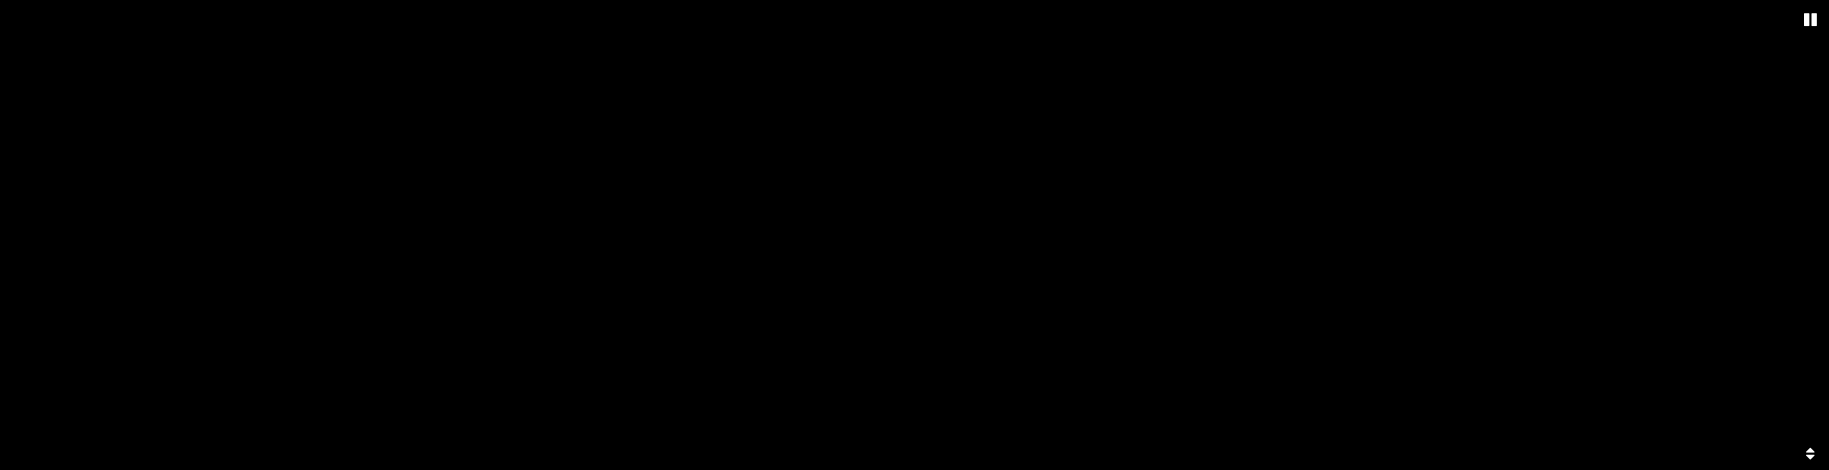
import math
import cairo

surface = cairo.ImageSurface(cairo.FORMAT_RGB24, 1829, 470)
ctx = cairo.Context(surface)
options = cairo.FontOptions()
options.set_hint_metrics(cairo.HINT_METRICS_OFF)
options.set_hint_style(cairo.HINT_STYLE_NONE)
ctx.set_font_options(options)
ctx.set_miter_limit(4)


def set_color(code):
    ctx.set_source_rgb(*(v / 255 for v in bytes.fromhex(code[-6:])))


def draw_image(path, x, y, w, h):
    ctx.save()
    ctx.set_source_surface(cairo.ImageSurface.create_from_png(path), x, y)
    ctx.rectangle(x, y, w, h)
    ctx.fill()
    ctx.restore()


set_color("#000000")
ctx.paint()
draw_image("assets/img1.png", 1804, 13, 13, 14)
draw_image("assets/img2.png", 1806, 447, 9, 13)
surface.write_to_png("output.png")
